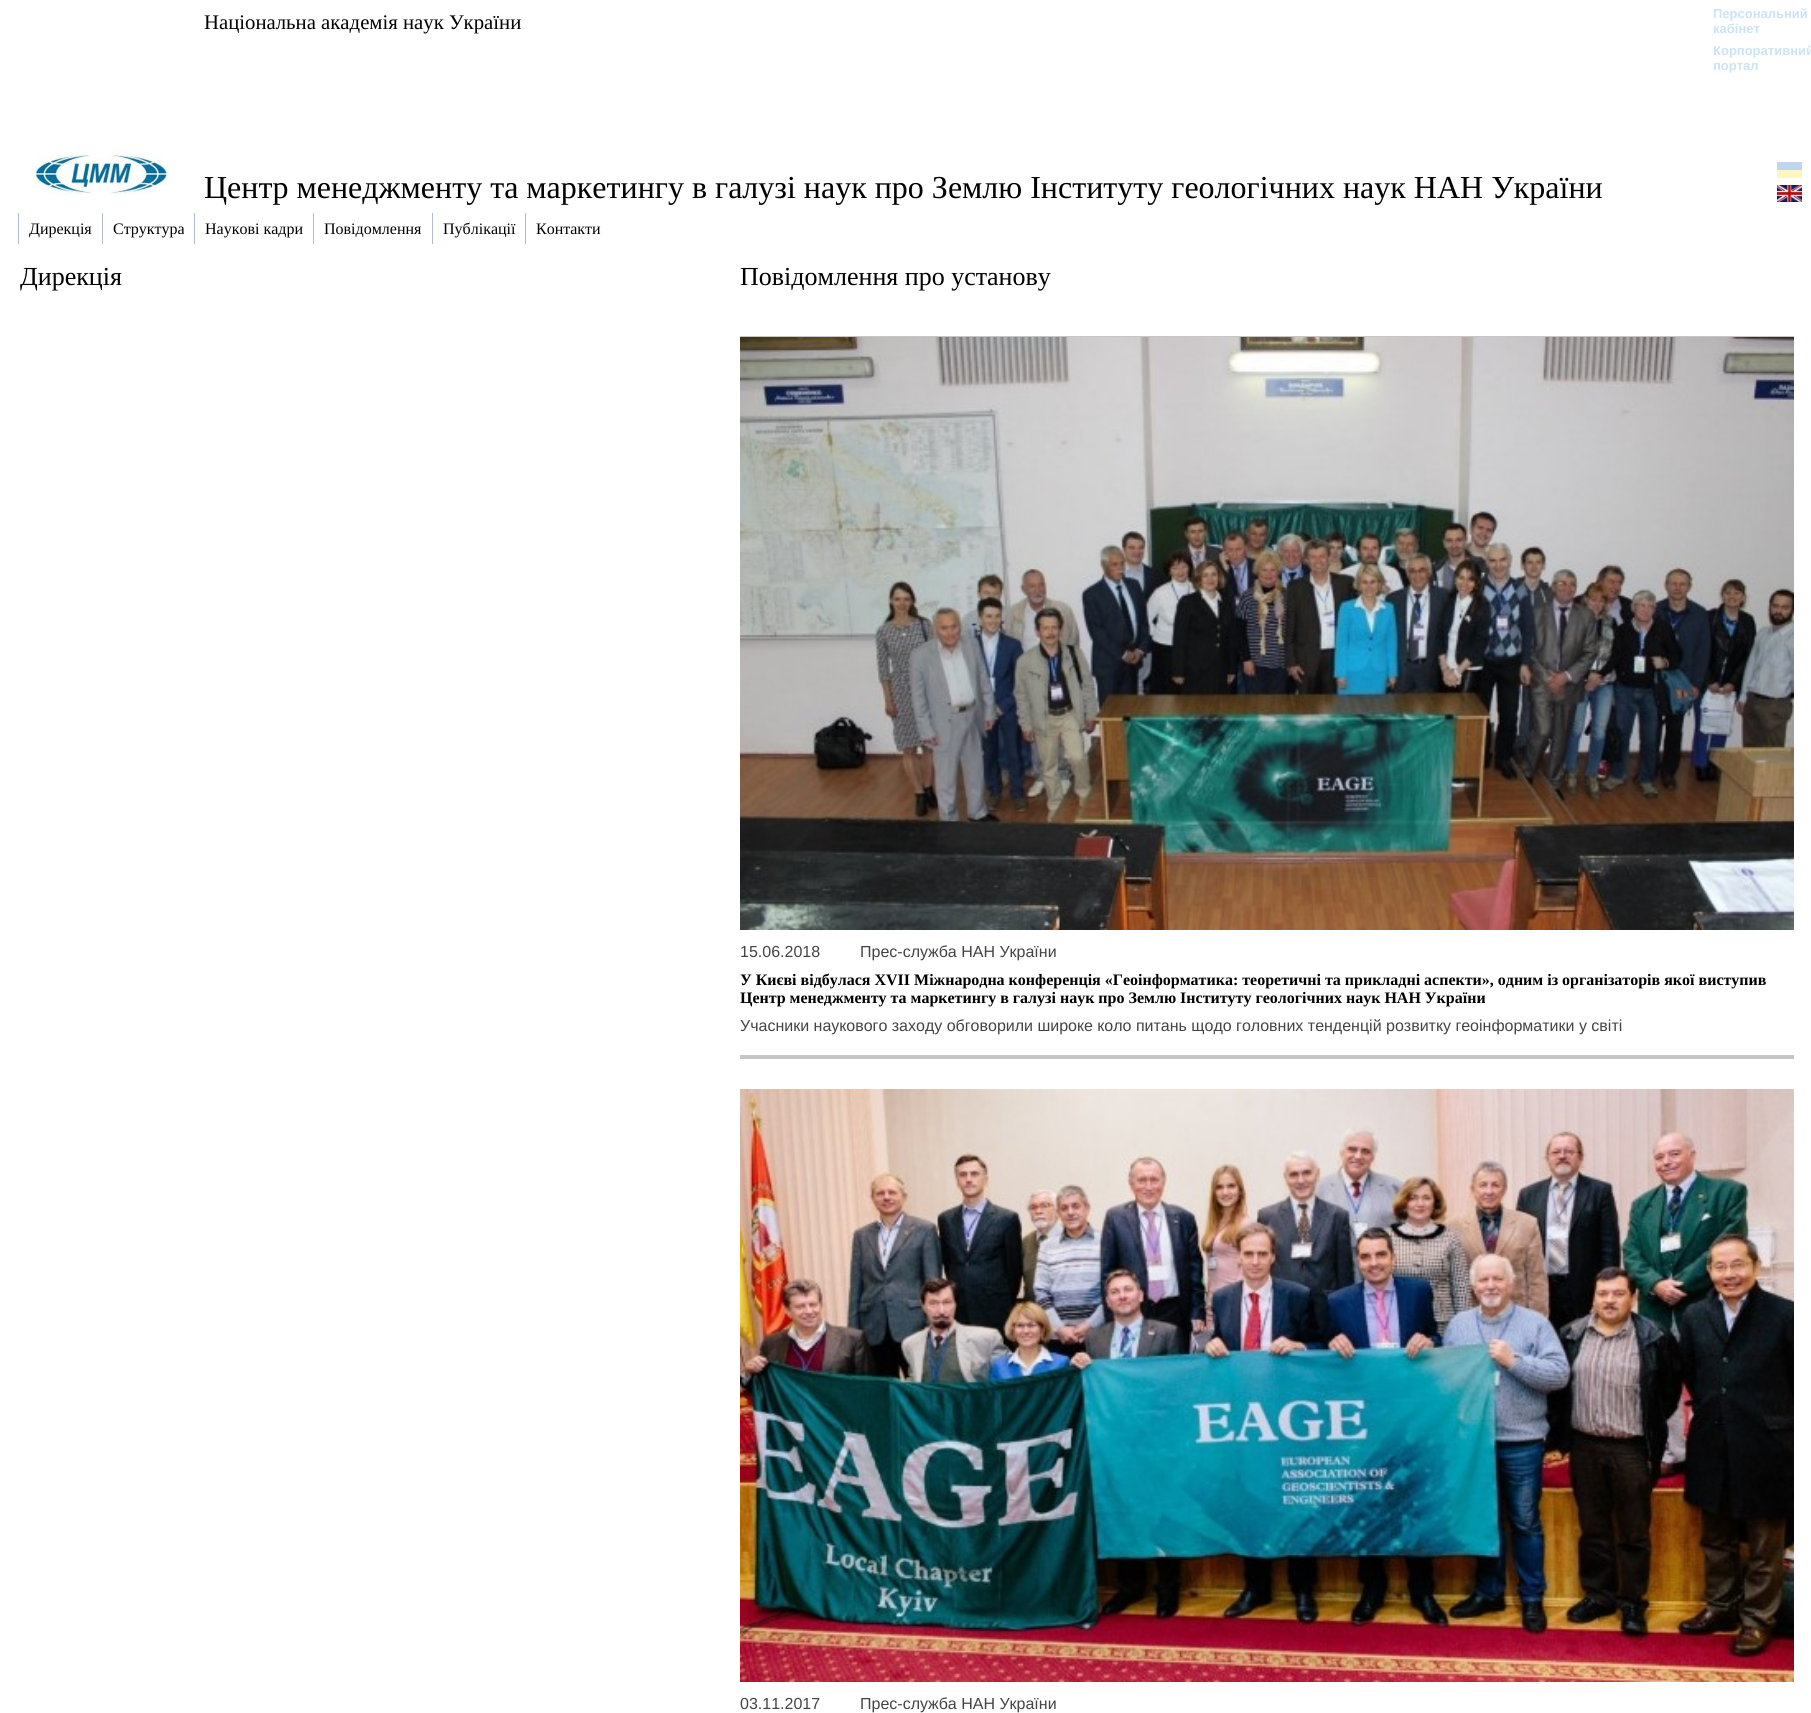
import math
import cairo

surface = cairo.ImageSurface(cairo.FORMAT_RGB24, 1811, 1713)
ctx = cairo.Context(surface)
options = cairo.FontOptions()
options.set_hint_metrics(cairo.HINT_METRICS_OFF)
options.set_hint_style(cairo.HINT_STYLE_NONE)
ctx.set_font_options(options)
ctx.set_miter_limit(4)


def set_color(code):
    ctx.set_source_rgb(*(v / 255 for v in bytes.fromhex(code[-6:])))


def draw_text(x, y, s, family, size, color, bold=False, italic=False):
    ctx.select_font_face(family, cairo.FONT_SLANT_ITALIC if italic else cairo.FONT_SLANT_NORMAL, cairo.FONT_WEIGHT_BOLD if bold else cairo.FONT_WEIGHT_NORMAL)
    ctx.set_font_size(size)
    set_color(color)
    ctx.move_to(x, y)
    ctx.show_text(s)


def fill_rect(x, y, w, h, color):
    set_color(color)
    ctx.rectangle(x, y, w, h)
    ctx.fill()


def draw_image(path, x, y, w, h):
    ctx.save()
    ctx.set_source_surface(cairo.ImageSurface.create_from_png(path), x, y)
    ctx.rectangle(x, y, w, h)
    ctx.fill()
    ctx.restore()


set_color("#ffffff")
ctx.paint()
draw_text(204, 29, "Національна академія наук України", "Liberation Serif", 20.75, "#000000")
draw_text(1713, 18, "Персональний", "Liberation Sans", 13, "#cce3f4", bold=True)
draw_text(1713, 33, "кабінет", "Liberation Sans", 13, "#cce3f4", bold=True)
draw_text(1713, 55, "Корпоративний", "Liberation Sans", 13, "#cce3f4", bold=True)
draw_text(1713, 70, "портал", "Liberation Sans", 13, "#cce3f4", bold=True)
draw_image("assets/img1.png", 30, 147, 142, 48)
draw_text(204, 198, "Центр менеджменту та маркетингу в галузі наук про Землю Інституту геологічних наук НАН України", "Liberation Serif", 32, "#000000")
draw_image("assets/img2.png", 1777, 162, 25, 16)
draw_image("assets/img3.png", 1777, 185, 25, 17)
fill_rect(18, 213, 1, 31, "#b2bdd3")
draw_text(29, 234, "Дирекція", "Liberation Serif", 16, "#000000")
fill_rect(102, 213, 1, 31, "#b2bdd3")
draw_text(113, 234, "Структура", "Liberation Serif", 16, "#000000")
fill_rect(194, 213, 1, 31, "#b2bdd3")
draw_text(205, 234, "Наукові кадри", "Liberation Serif", 16, "#000000")
fill_rect(313, 213, 1, 31, "#b2bdd3")
draw_text(324, 234, "Повідомлення", "Liberation Serif", 16, "#000000")
fill_rect(432, 213, 1, 31, "#b2bdd3")
draw_text(443, 234, "Публікації", "Liberation Serif", 16, "#000000")
fill_rect(525, 213, 1, 31, "#b2bdd3")
draw_text(536, 234, "Контакти", "Liberation Serif", 16, "#000000")
draw_text(20, 285, "Дирекція", "Liberation Serif", 26, "#000000")
draw_text(740, 285, "Повідомлення про установу", "Liberation Serif", 26, "#000000")
fill_rect(740, 336, 1054, 1, "#c6c6c6")
draw_image("assets/img4.png", 740, 337, 1054, 593)
draw_text(740, 957, "15.06.2018", "Liberation Sans", 16, "#444444")
draw_text(860, 957, "Прес-служба НАН України", "Liberation Sans", 16, "#444444")
draw_text(740, 985, "У Києві відбулася XVII Міжнародна конференція «Геоінформатика: теоретичні та прикладні аспекти», одним із організаторів якої виступив", "Liberation Serif", 16, "#000000", bold=True)
draw_text(740, 1003, "Центр менеджменту та маркетингу в галузі наук про Землю Інституту геологічних наук НАН України", "Liberation Serif", 16, "#000000", bold=True)
draw_text(740, 1031, "Учасники наукового заходу обговорили широке коло питань щодо головних тенденцій розвитку геоінформатики у світі", "Liberation Sans", 16, "#444444")
fill_rect(740, 1055, 1054, 4, "#c6c6c6")
draw_image("assets/img5.png", 740, 1089, 1054, 593)
draw_text(740, 1709, "03.11.2017", "Liberation Sans", 16, "#444444")
draw_text(860, 1709, "Прес-служба НАН України", "Liberation Sans", 16, "#444444")
surface.write_to_png("output.png")
